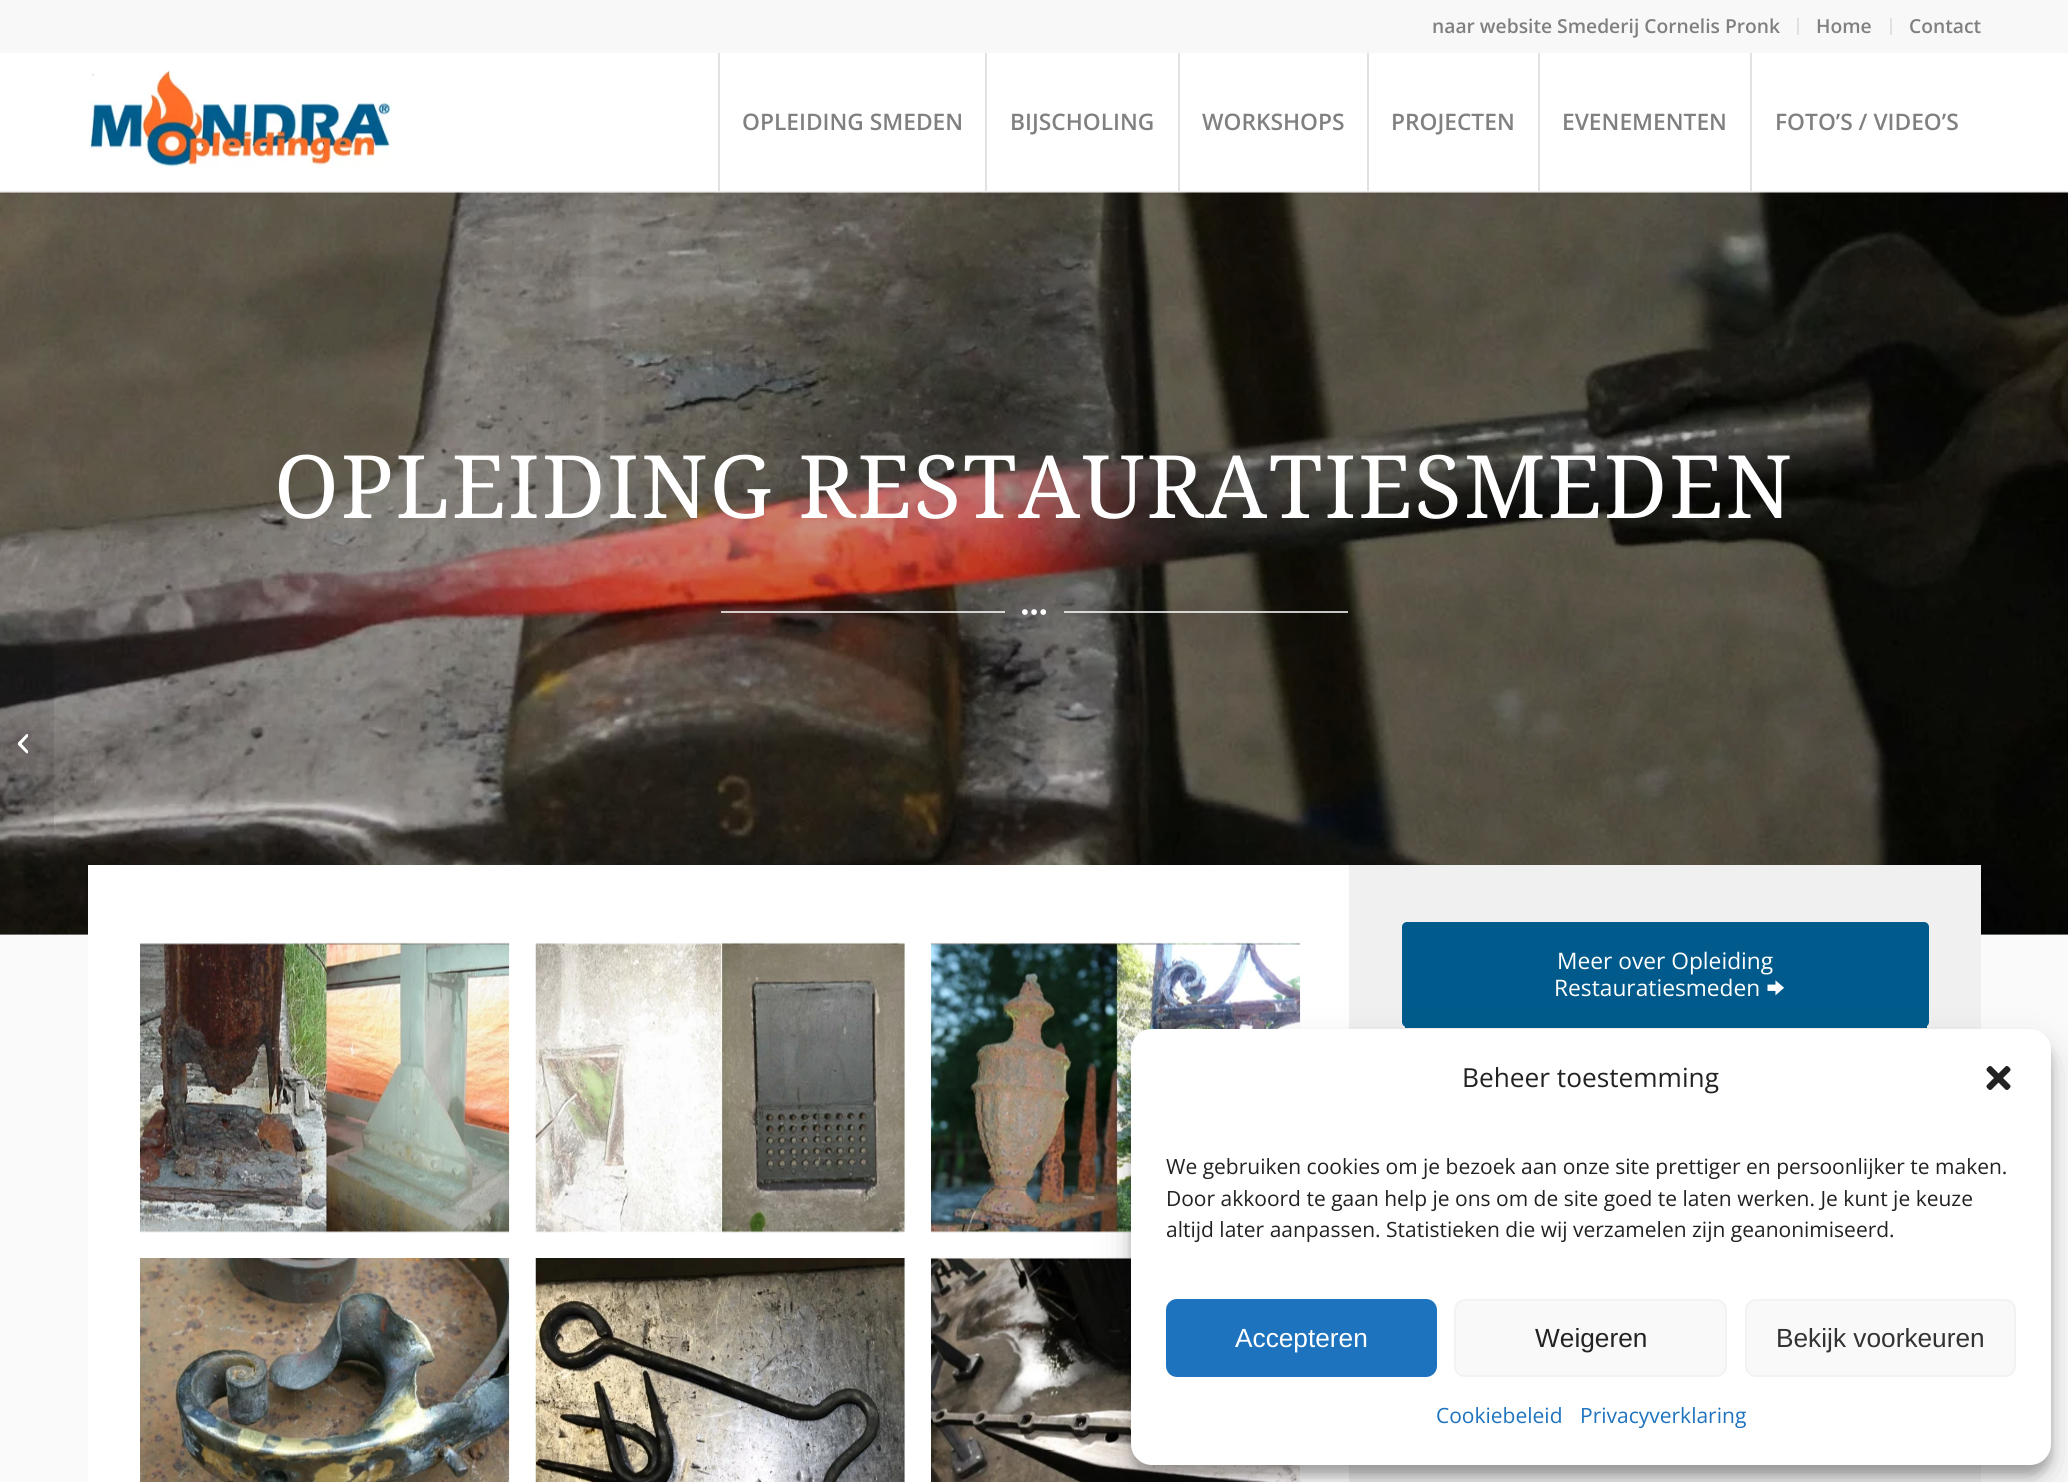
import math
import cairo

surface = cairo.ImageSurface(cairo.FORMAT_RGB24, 2068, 1482)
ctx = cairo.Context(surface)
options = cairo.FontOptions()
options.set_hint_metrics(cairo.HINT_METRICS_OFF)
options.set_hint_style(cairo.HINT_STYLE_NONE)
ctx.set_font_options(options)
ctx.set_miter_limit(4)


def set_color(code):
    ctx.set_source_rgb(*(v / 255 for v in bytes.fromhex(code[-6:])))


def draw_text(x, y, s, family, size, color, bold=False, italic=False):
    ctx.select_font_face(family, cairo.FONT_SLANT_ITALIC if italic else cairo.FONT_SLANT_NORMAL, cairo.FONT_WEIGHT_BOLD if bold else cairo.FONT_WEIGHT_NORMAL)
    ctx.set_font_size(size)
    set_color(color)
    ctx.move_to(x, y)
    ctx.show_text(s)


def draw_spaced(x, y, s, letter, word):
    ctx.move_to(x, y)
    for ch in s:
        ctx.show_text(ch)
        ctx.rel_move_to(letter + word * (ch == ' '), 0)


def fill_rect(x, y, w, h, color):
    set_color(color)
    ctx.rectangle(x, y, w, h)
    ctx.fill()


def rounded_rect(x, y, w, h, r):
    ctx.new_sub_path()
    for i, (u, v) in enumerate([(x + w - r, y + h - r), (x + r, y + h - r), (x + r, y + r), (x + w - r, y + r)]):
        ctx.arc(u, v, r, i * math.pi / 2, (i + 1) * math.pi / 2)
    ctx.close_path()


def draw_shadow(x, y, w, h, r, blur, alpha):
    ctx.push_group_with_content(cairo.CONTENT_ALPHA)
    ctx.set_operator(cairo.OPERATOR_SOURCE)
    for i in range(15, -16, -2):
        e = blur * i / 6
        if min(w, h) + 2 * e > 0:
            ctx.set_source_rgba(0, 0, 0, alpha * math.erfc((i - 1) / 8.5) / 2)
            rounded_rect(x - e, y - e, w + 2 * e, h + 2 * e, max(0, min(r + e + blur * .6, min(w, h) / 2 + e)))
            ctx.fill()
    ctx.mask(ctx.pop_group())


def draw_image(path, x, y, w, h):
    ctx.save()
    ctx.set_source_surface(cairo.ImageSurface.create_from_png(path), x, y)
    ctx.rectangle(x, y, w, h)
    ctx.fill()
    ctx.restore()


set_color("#ffffff")
ctx.paint()
fill_rect(0, 934, 2068, 1, "#c8c8c8")
draw_image("assets/img3.png", 0, 192, 2068, 743)
set_color("#000000")
draw_shadow(-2, -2, 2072, 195, 0, 2, 0.1)
fill_rect(0, 53, 2068, 138, "#ffffff")
fill_rect(718, 51, 2, 140, "#e1e1e1")
fill_rect(985, 51, 2, 140, "#e1e1e1")
fill_rect(1178, 51, 2, 140, "#e1e1e1")
fill_rect(1367, 51, 2, 140, "#e1e1e1")
fill_rect(1538, 51, 2, 140, "#e1e1e1")
fill_rect(1750, 51, 2, 140, "#e1e1e1")
fill_rect(0, 0, 2068, 53, "#f8f8f8")
fill_rect(1797, 18, 2, 17, "#e1e1e1")
draw_text(1432, 33, "naar website Smederij Cornelis Pronk", "Open Sans SemiBold", 19.25, "#808080")
fill_rect(1890, 18, 2, 17, "#e1e1e1")
draw_text(1816, 33, "Home", "Open Sans SemiBold", 19.25, "#808080")
draw_text(1909, 33, "Contact", "Open Sans SemiBold", 19.25, "#808080")
draw_image("assets/img1.png", 87, 69, 305, 98)
draw_text(742, 130, "OPLEIDING SMEDEN", "Open Sans SemiBold", 22.75, "#808080")
draw_text(1010, 130, "BIJSCHOLING", "Open Sans SemiBold", 22.75, "#808080")
draw_text(1202, 130, "WORKSHOPS", "Open Sans SemiBold", 22.75, "#808080")
draw_text(1391, 130, "PROJECTEN", "Open Sans SemiBold", 22.75, "#808080")
draw_text(1562, 130, "EVENEMENTEN", "Open Sans SemiBold", 22.75, "#808080")
draw_text(1775, 130, "FOTO’S / VIDEO’S", "Open Sans SemiBold", 22.75, "#808080")
ctx.set_source_rgba(0, 0, 0, 0.1)
ctx.new_path()
ctx.move_to(0, 646)
ctx.line_to(47, 646)
ctx.curve_to(51, 646, 54, 649, 54, 653)
ctx.line_to(54, 831)
ctx.curve_to(54, 835, 51, 838, 47, 838)
ctx.line_to(0, 838)
ctx.close_path()
ctx.fill()
draw_image("assets/img2.png", 18, 734, 10, 20)
ctx.select_font_face("Droid Serif")
ctx.set_font_size(87.5)
set_color("#ffffff")
draw_spaced(274, 518, "OPLEIDING RESTAURATIESMEDEN", 1.75, 0)
ctx.set_source_rgba(1, 1, 1, 0.76)
ctx.rectangle(721, 611, 284, 2)
ctx.fill()
draw_image("assets/img4.png", 1022, 609, 25, 6)
ctx.rectangle(1064, 611, 284, 2)
ctx.fill()
fill_rect(0, 935, 2068, 547, "#fafafa")
fill_rect(88, 865, 1261, 617, "#ffffff")
fill_rect(140, 943, 369, 289, "#fafafa")
draw_image("assets/img5.png", 140, 942, 370, 291)
fill_rect(536, 943, 369, 289, "#fafafa")
draw_image("assets/img6.png", 535, 942, 370, 291)
fill_rect(931, 943, 369, 289, "#fafafa")
draw_image("assets/img7.png", 931, 942, 370, 291)
draw_image("assets/img8.png", 140, 1258, 370, 224)
fill_rect(904, 1258, 1, 224, "#fafafa")
draw_image("assets/img9.png", 535, 1258, 370, 224)
fill_rect(931, 1258, 200, 1, "#fafafa")
draw_image("assets/img10.png", 931, 1257, 370, 225)
fill_rect(1349, 865, 632, 617, "#f0f0f0")
set_color("#005b8c")
rounded_rect(1402, 922, 527, 105, 5)
ctx.fill()
fill_rect(1405, 1026, 522, 2, "#005b8c")
draw_text(1557, 969, "Meer over Opleiding", "Open Sans", 22.75, "#ffffff")
draw_text(1554, 996, "Restauratiesmeden", "Open Sans", 22.75, "#ffffff")
draw_image("assets/img11.png", 1767, 980, 17, 16)
set_color("#000000")
draw_shadow(1131, 1040, 920, 435, 21, 5, 0.23)
draw_shadow(1131, 1047, 920, 435, 21, 17.5, 0.19)
set_color("#ffffff")
rounded_rect(1131, 1029, 920, 436, 21)
ctx.fill()
draw_text(1462, 1087, "Beheer toestemming", "Open Sans", 26.25, "#222222")
draw_image("assets/img12.png", 1986, 1066, 25, 24)
draw_text(1166, 1174, "We gebruiken cookies om je bezoek aan onze site prettiger en persoonlijker te maken.", "Open Sans", 21, "#222222")
draw_text(1166, 1206, "Door akkoord te gaan help je ons om de site goed te laten werken. Je kunt je keuze", "Open Sans", 21, "#222222")
draw_text(1166, 1237, "altijd later aanpassen. Statistieken die wij verzamelen zijn geanonimiseerd.", "Open Sans", 21, "#222222")
set_color("#1e73be")
rounded_rect(1167, 1300, 269, 76, 10)
ctx.fill_preserve()
ctx.stroke()
draw_text(1235, 1347, "Accepteren", "Liberation Sans", 26.25, "#ffffff")
set_color("#f9f9f9")
rounded_rect(1455, 1300, 271, 76, 10)
ctx.fill_preserve()
set_color("#f2f2f2")
ctx.stroke()
draw_text(1535, 1347, "Weigeren", "Liberation Sans", 26.25, "#222222")
set_color("#f9f9f9")
rounded_rect(1746, 1300, 269, 76, 10)
ctx.fill_preserve()
set_color("#f2f2f2")
ctx.stroke()
draw_text(1776, 1347, "Bekijk voorkeuren", "Liberation Sans", 26.25, "#333333")
draw_text(1436, 1423, "Cookiebeleid", "Open Sans", 21, "#1e73be")
draw_text(1580, 1423, "Privacyverklaring", "Open Sans", 21, "#1e73be")
surface.write_to_png("output.png")
